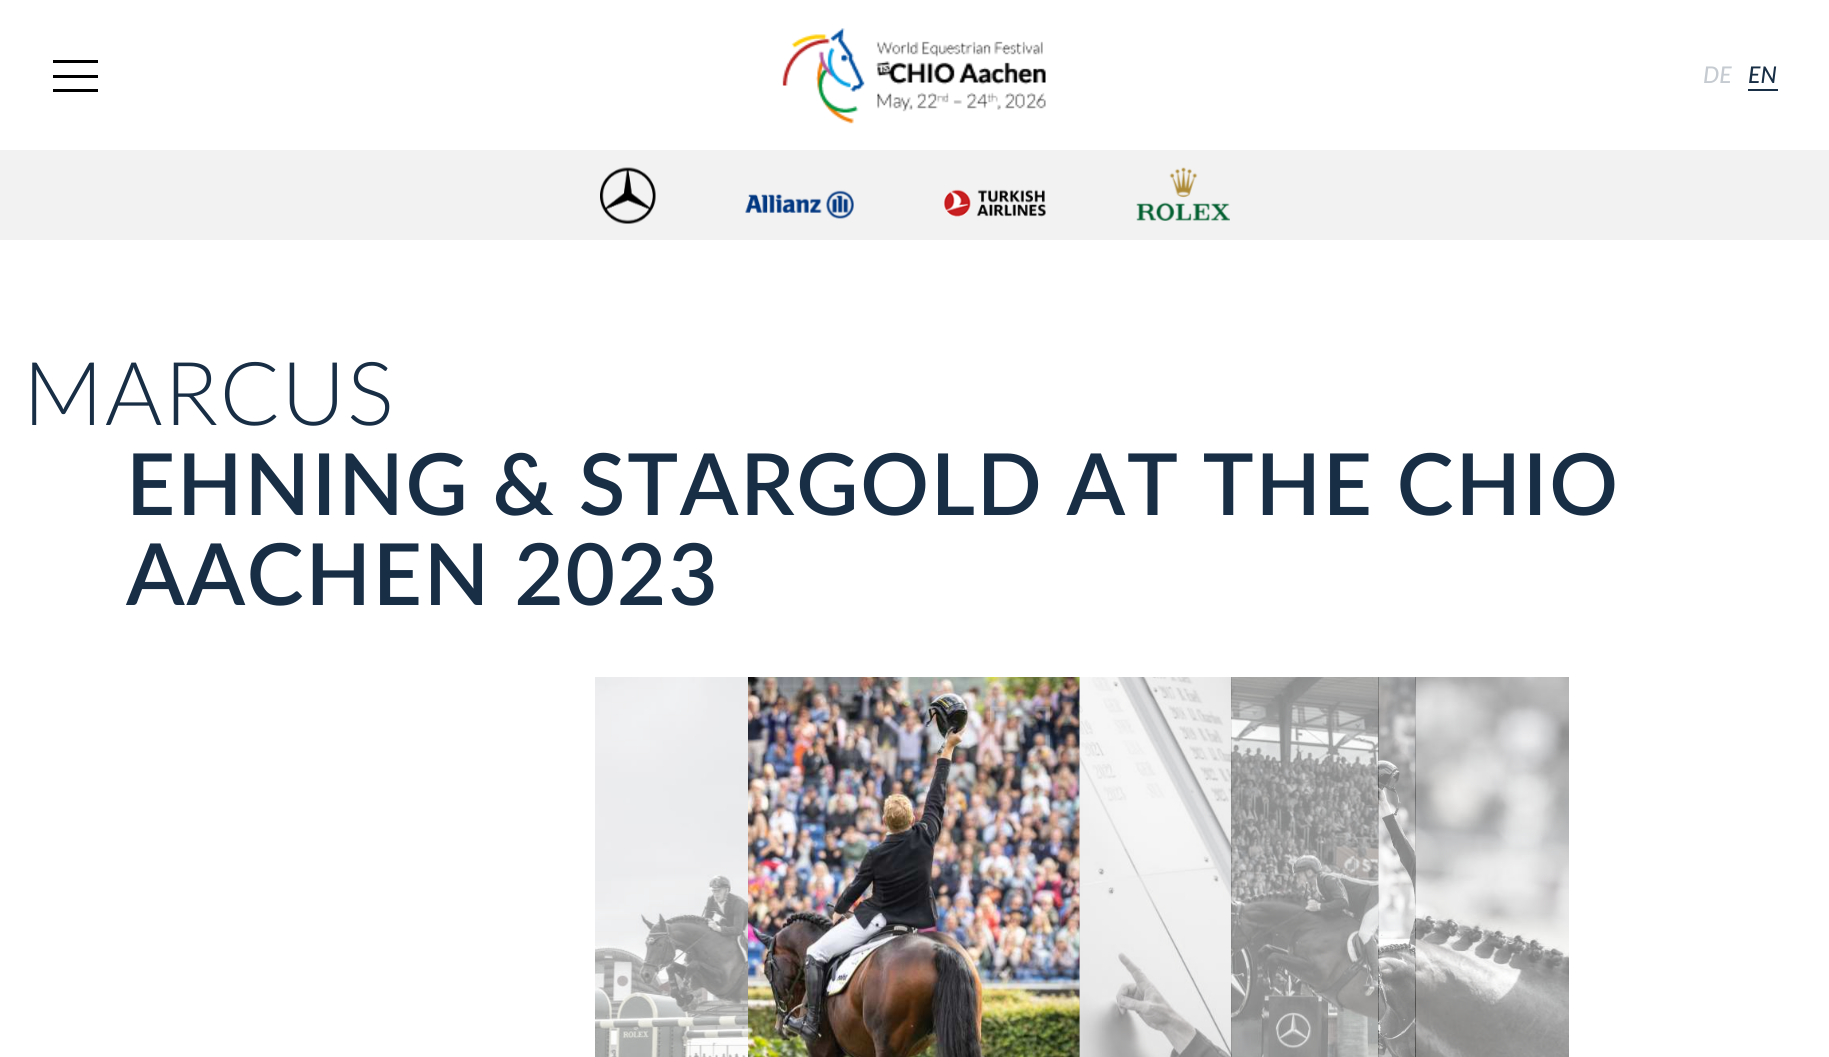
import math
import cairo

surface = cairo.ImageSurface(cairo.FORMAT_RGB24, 1829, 1057)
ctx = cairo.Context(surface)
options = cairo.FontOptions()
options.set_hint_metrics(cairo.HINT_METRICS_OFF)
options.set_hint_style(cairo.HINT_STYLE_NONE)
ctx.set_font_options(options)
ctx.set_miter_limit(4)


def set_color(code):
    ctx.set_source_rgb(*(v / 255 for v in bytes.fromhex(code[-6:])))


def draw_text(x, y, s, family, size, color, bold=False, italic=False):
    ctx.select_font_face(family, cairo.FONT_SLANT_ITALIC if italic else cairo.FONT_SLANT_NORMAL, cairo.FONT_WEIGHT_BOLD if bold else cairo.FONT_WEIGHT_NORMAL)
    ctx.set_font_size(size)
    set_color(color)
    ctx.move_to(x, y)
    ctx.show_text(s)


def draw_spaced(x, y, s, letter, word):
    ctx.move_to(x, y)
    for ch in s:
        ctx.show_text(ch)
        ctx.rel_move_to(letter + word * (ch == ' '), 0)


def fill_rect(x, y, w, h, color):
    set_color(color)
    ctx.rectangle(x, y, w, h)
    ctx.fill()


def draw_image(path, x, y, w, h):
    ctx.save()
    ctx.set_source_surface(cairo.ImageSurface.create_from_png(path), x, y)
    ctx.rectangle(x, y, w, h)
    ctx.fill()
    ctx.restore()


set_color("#ffffff")
ctx.paint()
fill_rect(53, 60, 45, 3, "#000000")
fill_rect(53, 75, 45, 3, "#000000")
fill_rect(53, 89, 45, 3, "#000000")
draw_image("assets/img1.png", 782, 28, 264, 96)
draw_text(1703, 83, "DE", "Lato Medium", 24, "#c5cbd1", italic=True)
draw_text(1748, 83, "EN", "Lato Medium", 24, "#182e45", italic=True)
fill_rect(1748, 89, 30, 2, "#182e45")
fill_rect(0, 150, 1829, 90, "#f2f2f2")
draw_image("assets/img2.png", 600, 167, 56, 57)
draw_image("assets/img3.png", 745, 190, 109, 29)
draw_image("assets/img4.png", 943, 189, 103, 28)
draw_image("assets/img5.png", 1136, 167, 94, 54)
ctx.select_font_face("Lato Light")
ctx.set_font_size(90)
set_color("#182e45")
draw_spaced(23, 425, "MARCUS", 1.8, 0)
ctx.select_font_face("Lato SemiBold")
draw_spaced(126, 515, "EHNING & STARGOLD AT THE CHIO", 1.8, 0)
draw_spaced(126, 605, "AACHEN 2023", 1.8, 0)
draw_image("assets/img6.png", 595, 677, 153, 380)
draw_image("assets/img7.png", 748, 677, 332, 380)
draw_image("assets/img8.png", 990, 706, 60, 45)
draw_image("assets/img9.png", 1079, 677, 153, 380)
draw_image("assets/img10.png", 1231, 677, 148, 380)
draw_image("assets/img11.png", 1378, 677, 38, 380)
draw_image("assets/img12.png", 1415, 677, 154, 380)
surface.write_to_png("output.png")
